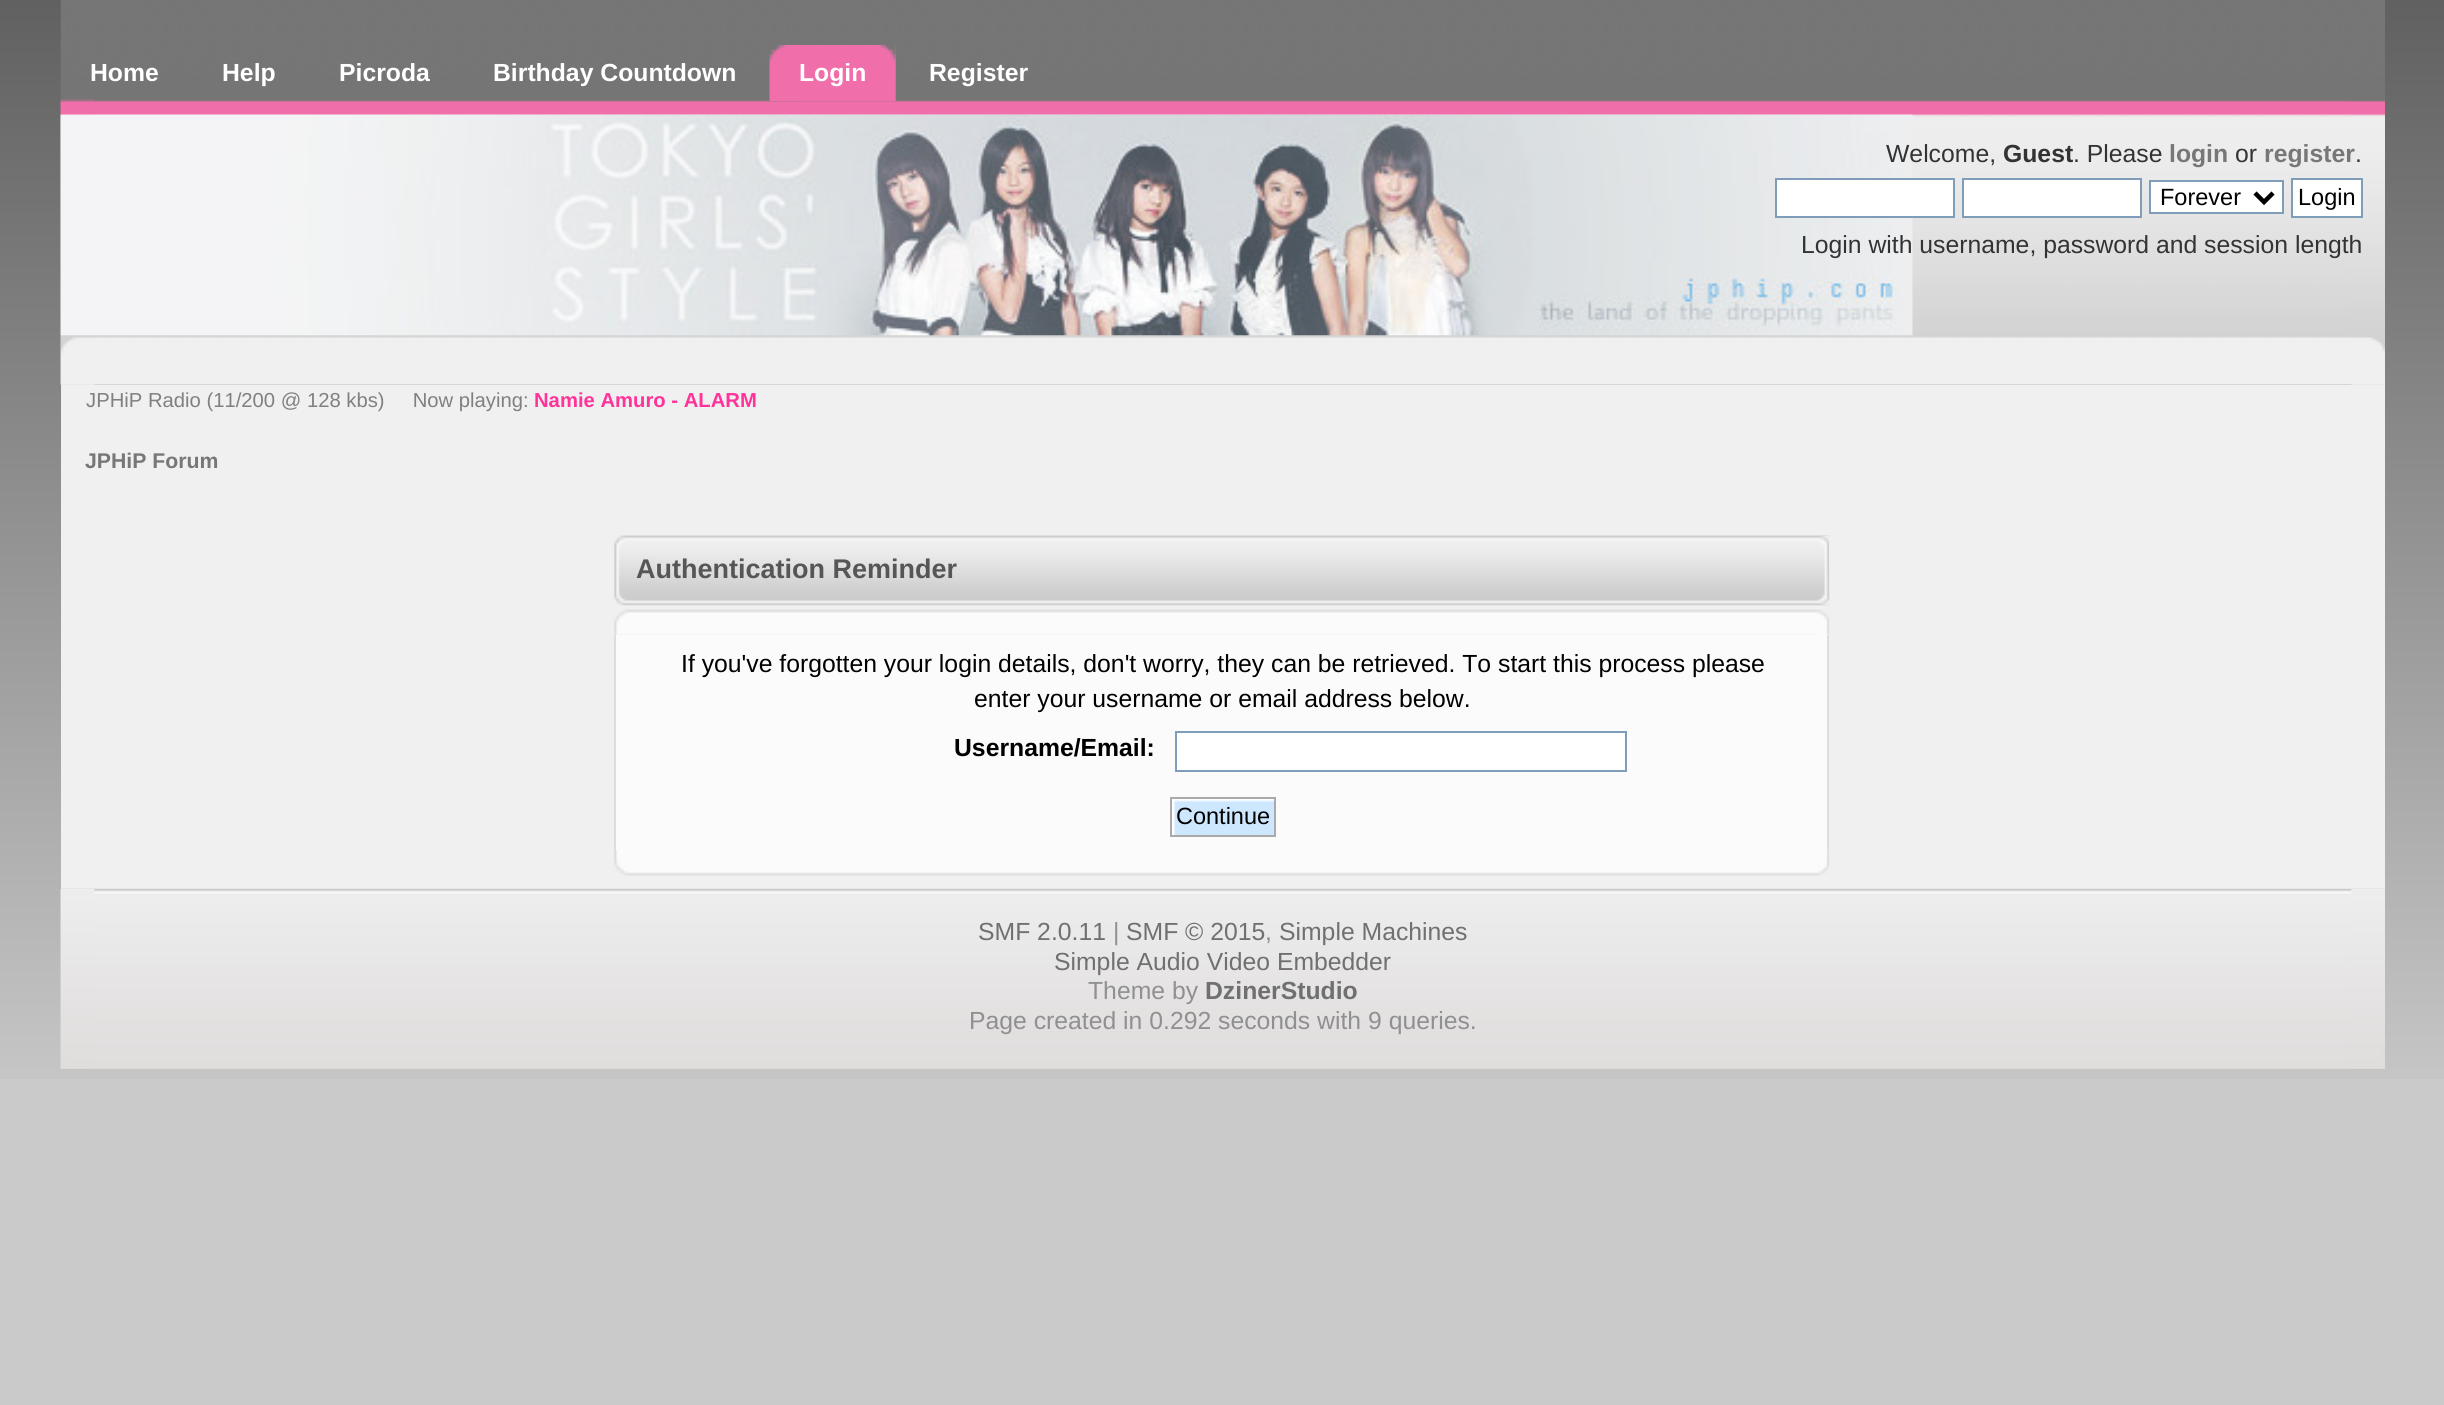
import math
import cairo

surface = cairo.ImageSurface(cairo.FORMAT_RGB24, 2444, 1405)
ctx = cairo.Context(surface)
options = cairo.FontOptions()
options.set_hint_metrics(cairo.HINT_METRICS_OFF)
options.set_hint_style(cairo.HINT_STYLE_NONE)
ctx.set_font_options(options)
ctx.set_miter_limit(4)


def set_color(code):
    ctx.set_source_rgb(*(v / 255 for v in bytes.fromhex(code[-6:])))


def draw_text(x, y, s, family, size, color, bold=False, italic=False):
    ctx.select_font_face(family, cairo.FONT_SLANT_ITALIC if italic else cairo.FONT_SLANT_NORMAL, cairo.FONT_WEIGHT_BOLD if bold else cairo.FONT_WEIGHT_NORMAL)
    ctx.set_font_size(size)
    set_color(color)
    ctx.move_to(x, y)
    ctx.show_text(s)


def fill_rect(x, y, w, h, color):
    set_color(color)
    ctx.rectangle(x, y, w, h)
    ctx.fill()


def draw_image(path, x, y, w, h):
    ctx.save()
    ctx.set_source_surface(cairo.ImageSurface.create_from_png(path), x, y)
    ctx.rectangle(x, y, w, h)
    ctx.fill()
    ctx.restore()


set_color("#cacaca")
ctx.paint()
draw_image("assets/img1.png", 0, 0, 2444, 1079)
draw_image("assets/img2.png", 60, 0, 2325, 385)
draw_image("assets/img3.png", 60, 98, 35, 287)
draw_image("assets/img4.png", 2351, 100, 34, 285)
draw_text(90, 81, "Home", "Liberation Sans", 24.75, "#ffffff", bold=True)
draw_text(222, 81, "Help", "Liberation Sans", 24.75, "#ffffff", bold=True)
draw_text(339, 81, "Picroda", "Liberation Sans", 24.75, "#ffffff", bold=True)
draw_text(493, 81, "Birthday Countdown", "Liberation Sans", 24.75, "#ffffff", bold=True)
draw_image("assets/img5.png", 769, 45, 127, 57)
draw_image("assets/img6.png", 799, 45, 97, 57)
draw_text(799, 81, "Login", "Liberation Sans", 24.75, "#ffffff", bold=True)
draw_text(929, 81, "Register", "Liberation Sans", 24.75, "#ffffff", bold=True)
draw_image("assets/img7.png", 60, 114, 1853, 222)
draw_text(1886, 162, "Welcome,", "Liberation Sans", 24.75, "#333333")
draw_text(2003, 162, "Guest", "Liberation Sans", 24.75, "#333333", bold=True)
draw_text(2073, 162, ". Please", "Liberation Sans", 24.75, "#333333")
draw_text(2169, 162, "login", "Liberation Sans", 24.75, "#777777", bold=True)
draw_text(2235, 162, "or", "Liberation Sans", 24.75, "#333333")
draw_text(2264, 162, "register", "Liberation Sans", 24.75, "#777777", bold=True)
draw_text(2355, 162, ".", "Liberation Sans", 24.75, "#333333")
set_color("#ffffff")
ctx.rectangle(1776, 179, 178, 38)
ctx.fill_preserve()
set_color("#7f9db9")
ctx.stroke()
set_color("#ffffff")
ctx.rectangle(1963, 179, 178, 38)
ctx.fill_preserve()
set_color("#7f9db9")
ctx.stroke()
set_color("#ffffff")
ctx.rectangle(2150, 181, 133, 32)
ctx.fill_preserve()
set_color("#7f9db9")
ctx.stroke()
ctx.new_path()
ctx.move_to(2255, 193)
ctx.line_to(2264, 202)
ctx.line_to(2273, 193)
set_color("#000000")
ctx.set_line_width(4.5)
ctx.stroke()
draw_text(2160, 205, "Forever", "Liberation Sans", 23.5, "#000000")
set_color("#ffffff")
ctx.rectangle(2292, 179, 70, 38)
ctx.fill_preserve()
set_color("#7f9db9")
ctx.set_line_width(2)
ctx.stroke()
draw_text(2298, 205, "Login", "Liberation Sans", 23.5, "#000000")
draw_text(1801, 253, "Login with username, password and session length", "Liberation Sans", 24.75, "#333333")
fill_rect(61, 385, 2324, 504, "#f0f0f0")
draw_text(86, 407, "JPHiP Radio (11/200 @ 128 kbs)     Now playing:", "Liberation Sans", 20.25, "#808080")
draw_text(534, 407, "Namie Amuro - ALARM", "Liberation Sans", 20.25, "#ff3399", bold=True)
draw_text(85, 468, "JPHiP Forum", "Liberation Sans", 21.25, "#777777", bold=True)
draw_image("assets/img8.png", 614, 535, 1216, 71)
draw_image("assets/img9.png", 1817, 535, 12, 70)
draw_text(636, 578, "Authentication Reminder", "Liberation Sans", 27, "#565656", bold=True)
draw_image("assets/img10.png", 614, 609, 1216, 26)
draw_image("assets/img11.png", 1817, 609, 13, 26)
fill_rect(616, 635, 1211, 216, "#fbfbfb")
fill_rect(1827, 635, 2, 216, "#dddddd")
fill_rect(614, 635, 2, 216, "#dddddd")
draw_text(681, 672, "If you've forgotten your login details, don't worry, they can be retrieved. To start this process please", "Liberation Sans", 24.75, "#000000")
draw_text(974, 707, "enter your username or email address below.", "Liberation Sans", 24.75, "#000000")
draw_text(954, 756, "Username/Email:", "Liberation Sans", 24.75, "#000000", bold=True)
set_color("#ffffff")
ctx.rectangle(1176, 732, 450, 39)
ctx.fill_preserve()
set_color("#7f9db9")
ctx.stroke()
draw_image("assets/img12.png", 1172, 799, 102, 36)
ctx.rectangle(1171, 798, 104, 38)
set_color("#aaaaaa")
ctx.stroke()
draw_text(1176, 824, "Continue", "Liberation Sans", 23.5, "#000000")
draw_image("assets/img13.png", 614, 850, 1216, 26)
draw_image("assets/img14.png", 1818, 850, 12, 26)
draw_image("assets/img15.png", 60, 888, 2325, 181)
draw_image("assets/img16.png", 60, 889, 35, 180)
draw_image("assets/img17.png", 2351, 889, 34, 180)
draw_text(978, 940, "SMF 2.0.11", "Liberation Sans", 24.75, "#707070")
draw_text(1113, 940, "|", "Liberation Sans", 24.75, "#909090")
draw_text(1126, 940, "SMF © 2015", "Liberation Sans", 24.75, "#707070")
draw_text(1265, 940, ",", "Liberation Sans", 24.75, "#909090")
draw_text(1279, 940, "Simple Machines", "Liberation Sans", 24.75, "#707070")
draw_text(1054, 970, "Simple Audio Video Embedder", "Liberation Sans", 24.75, "#707070")
draw_text(1088, 999, "Theme by", "Liberation Sans", 24.75, "#909090")
draw_text(1205, 999, "DzinerStudio", "Liberation Sans", 24.75, "#707070", bold=True)
draw_text(969, 1029, "Page created in 0.292 seconds with 9 queries.", "Liberation Sans", 24.75, "#909090")
surface.write_to_png("output.png")
